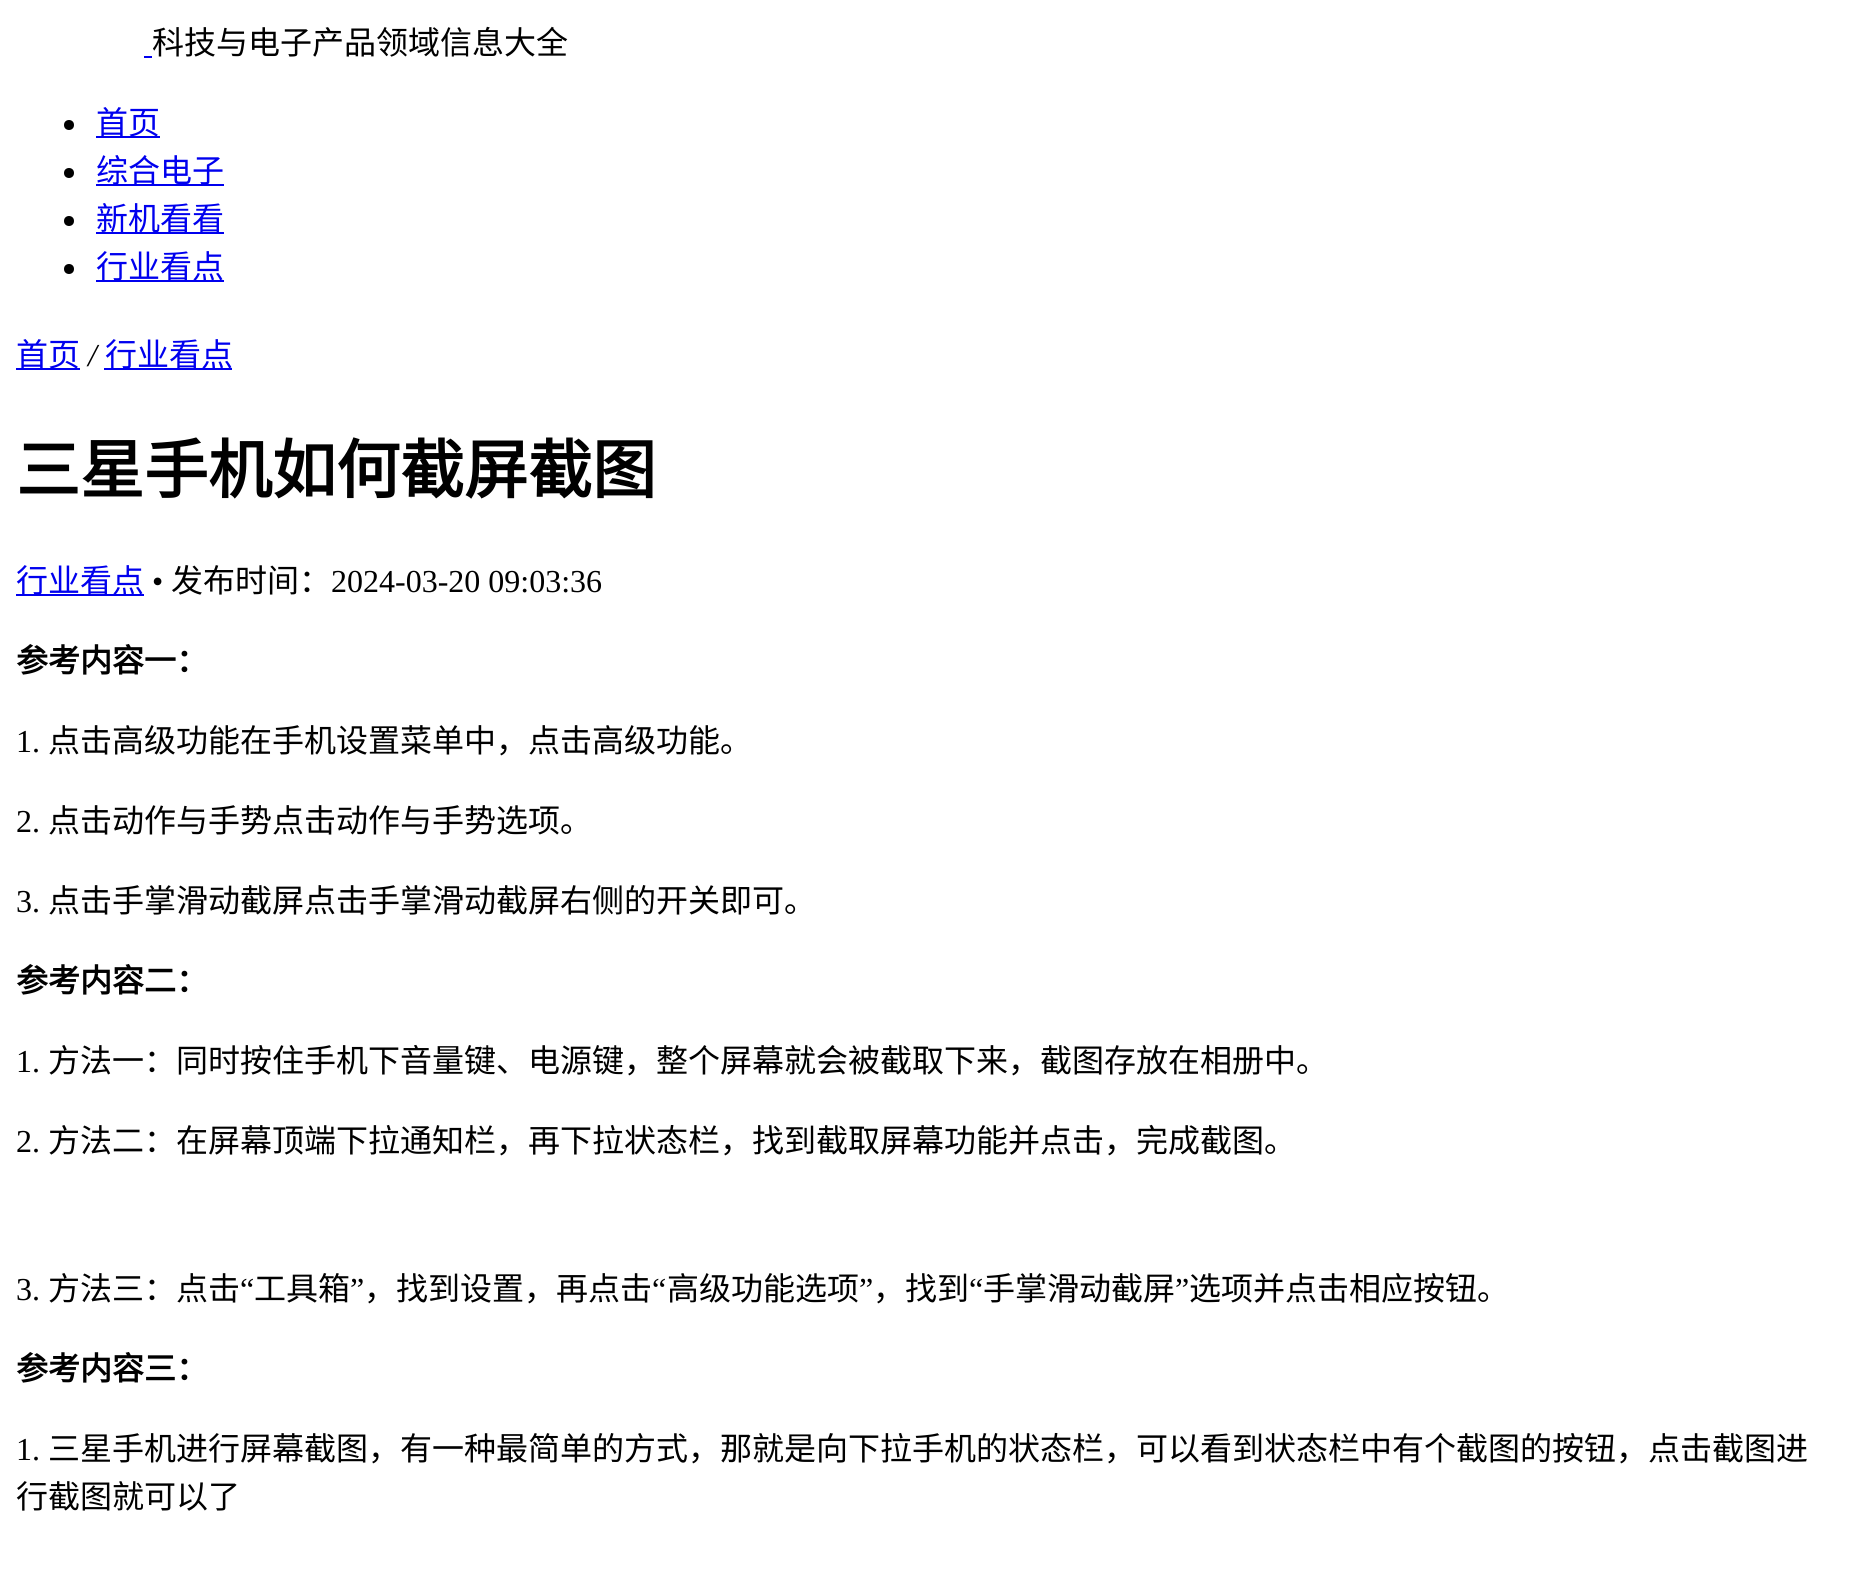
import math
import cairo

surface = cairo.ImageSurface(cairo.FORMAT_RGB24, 1854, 1570)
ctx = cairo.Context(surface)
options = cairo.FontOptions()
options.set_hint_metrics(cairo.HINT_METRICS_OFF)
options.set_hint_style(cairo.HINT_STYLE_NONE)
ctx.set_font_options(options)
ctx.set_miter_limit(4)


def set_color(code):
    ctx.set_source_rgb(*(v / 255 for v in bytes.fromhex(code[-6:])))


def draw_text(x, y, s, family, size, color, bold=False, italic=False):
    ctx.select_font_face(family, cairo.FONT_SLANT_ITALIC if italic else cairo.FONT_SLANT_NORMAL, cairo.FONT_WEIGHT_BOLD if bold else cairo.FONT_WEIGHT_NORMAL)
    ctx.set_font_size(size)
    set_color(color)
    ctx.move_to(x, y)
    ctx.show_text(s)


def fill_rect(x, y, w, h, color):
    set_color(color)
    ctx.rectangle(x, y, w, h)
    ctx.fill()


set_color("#ffffff")
ctx.paint()
fill_rect(144, 56, 8, 2, "#0000ee")
draw_text(152, 54, "科技与电子产品领域信息大全", "Noto Sans CJK SC", 32, "#000000")
ctx.new_path()
ctx.arc(69, 125, 5, 0, 2 * math.pi)
ctx.fill()
fill_rect(96, 136, 64, 2, "#0000ee")
draw_text(96, 134, "首页", "Noto Sans CJK SC", 32, "#0000ee")
set_color("#000000")
ctx.new_path()
ctx.arc(69, 173, 5, 0, 2 * math.pi)
ctx.fill()
fill_rect(96, 184, 128, 2, "#0000ee")
draw_text(96, 182, "综合电子", "Noto Sans CJK SC", 32, "#0000ee")
set_color("#000000")
ctx.new_path()
ctx.arc(69, 221, 5, 0, 2 * math.pi)
ctx.fill()
fill_rect(96, 232, 128, 2, "#0000ee")
draw_text(96, 230, "新机看看", "Noto Sans CJK SC", 32, "#0000ee")
set_color("#000000")
ctx.new_path()
ctx.arc(69, 269, 5, 0, 2 * math.pi)
ctx.fill()
fill_rect(96, 280, 128, 2, "#0000ee")
draw_text(96, 278, "行业看点", "Noto Sans CJK SC", 32, "#0000ee")
fill_rect(16, 368, 64, 2, "#0000ee")
draw_text(16, 366, "首页", "Noto Sans CJK SC", 32, "#0000ee")
draw_text(88, 366, "/", "Liberation Serif", 32, "#000000", italic=True)
fill_rect(104, 368, 128, 2, "#0000ee")
draw_text(105, 366, "行业看点", "Noto Sans CJK SC", 32, "#0000ee")
draw_text(16, 493, "三星手机如何截屏截图", "Noto Sans CJK SC", 64, "#000000", bold=True)
fill_rect(16, 594, 128, 2, "#0000ee")
draw_text(16, 592, "行业看点", "Noto Sans CJK SC", 32, "#0000ee")
draw_text(152, 592, "•", "Liberation Serif", 32, "#000000")
draw_text(171, 592, "发布时间：", "Noto Sans CJK SC", 32, "#000000")
draw_text(331, 592, "2024-03-20 09:03:36", "Liberation Serif", 32, "#000000")
draw_text(16, 672, "参考内容一：", "Noto Sans CJK SC", 32, "#000000", bold=True)
draw_text(16, 752, "1.", "Liberation Serif", 32, "#000000")
draw_text(48, 752, "点击高级功能在手机设置菜单中，点击高级功能。", "Noto Sans CJK SC", 32, "#000000")
draw_text(16, 832, "2.", "Liberation Serif", 32, "#000000")
draw_text(48, 832, "点击动作与手势点击动作与手势选项。", "Noto Sans CJK SC", 32, "#000000")
draw_text(16, 912, "3.", "Liberation Serif", 32, "#000000")
draw_text(48, 912, "点击手掌滑动截屏点击手掌滑动截屏右侧的开关即可。", "Noto Sans CJK SC", 32, "#000000")
draw_text(16, 992, "参考内容二：", "Noto Sans CJK SC", 32, "#000000", bold=True)
draw_text(16, 1072, "1.", "Liberation Serif", 32, "#000000")
draw_text(48, 1072, "方法一：同时按住手机下音量键、电源键，整个屏幕就会被截取下来，截图存放在相册中。", "Noto Sans CJK SC", 32, "#000000")
draw_text(16, 1152, "2.", "Liberation Serif", 32, "#000000")
draw_text(48, 1152, "方法二：在屏幕顶端下拉通知栏，再下拉状态栏，找到截取屏幕功能并点击，完成截图。", "Noto Sans CJK SC", 32, "#000000")
draw_text(16, 1300, "3.", "Liberation Serif", 32, "#000000")
draw_text(48, 1300, "方法三：点击", "Noto Sans CJK SC", 32, "#000000")
draw_text(240, 1300, "“", "Liberation Serif", 32, "#000000")
draw_text(254, 1300, "工具箱", "Noto Sans CJK SC", 32, "#000000")
draw_text(350, 1300, "”", "Liberation Serif", 32, "#000000")
draw_text(364, 1300, "，找到设置，再点击", "Noto Sans CJK SC", 32, "#000000")
draw_text(652, 1300, "“", "Liberation Serif", 32, "#000000")
draw_text(667, 1300, "高级功能选项", "Noto Sans CJK SC", 32, "#000000")
draw_text(859, 1300, "”", "Liberation Serif", 32, "#000000")
draw_text(873, 1300, "，找到", "Noto Sans CJK SC", 32, "#000000")
draw_text(969, 1300, "“", "Liberation Serif", 32, "#000000")
draw_text(983, 1300, "手掌滑动截屏", "Noto Sans CJK SC", 32, "#000000")
draw_text(1175, 1300, "”", "Liberation Serif", 32, "#000000")
draw_text(1189, 1300, "选项并点击相应按钮。", "Noto Sans CJK SC", 32, "#000000")
draw_text(16, 1380, "参考内容三：", "Noto Sans CJK SC", 32, "#000000", bold=True)
draw_text(16, 1460, "1.", "Liberation Serif", 32, "#000000")
draw_text(48, 1460, "三星手机进行屏幕截图，有一种最简单的方式，那就是向下拉手机的状态栏，可以看到状态栏中有个截图的按钮，点击截图进", "Noto Sans CJK SC", 32, "#000000")
draw_text(16, 1508, "行截图就可以了", "Noto Sans CJK SC", 32, "#000000")
surface.write_to_png("output.png")
